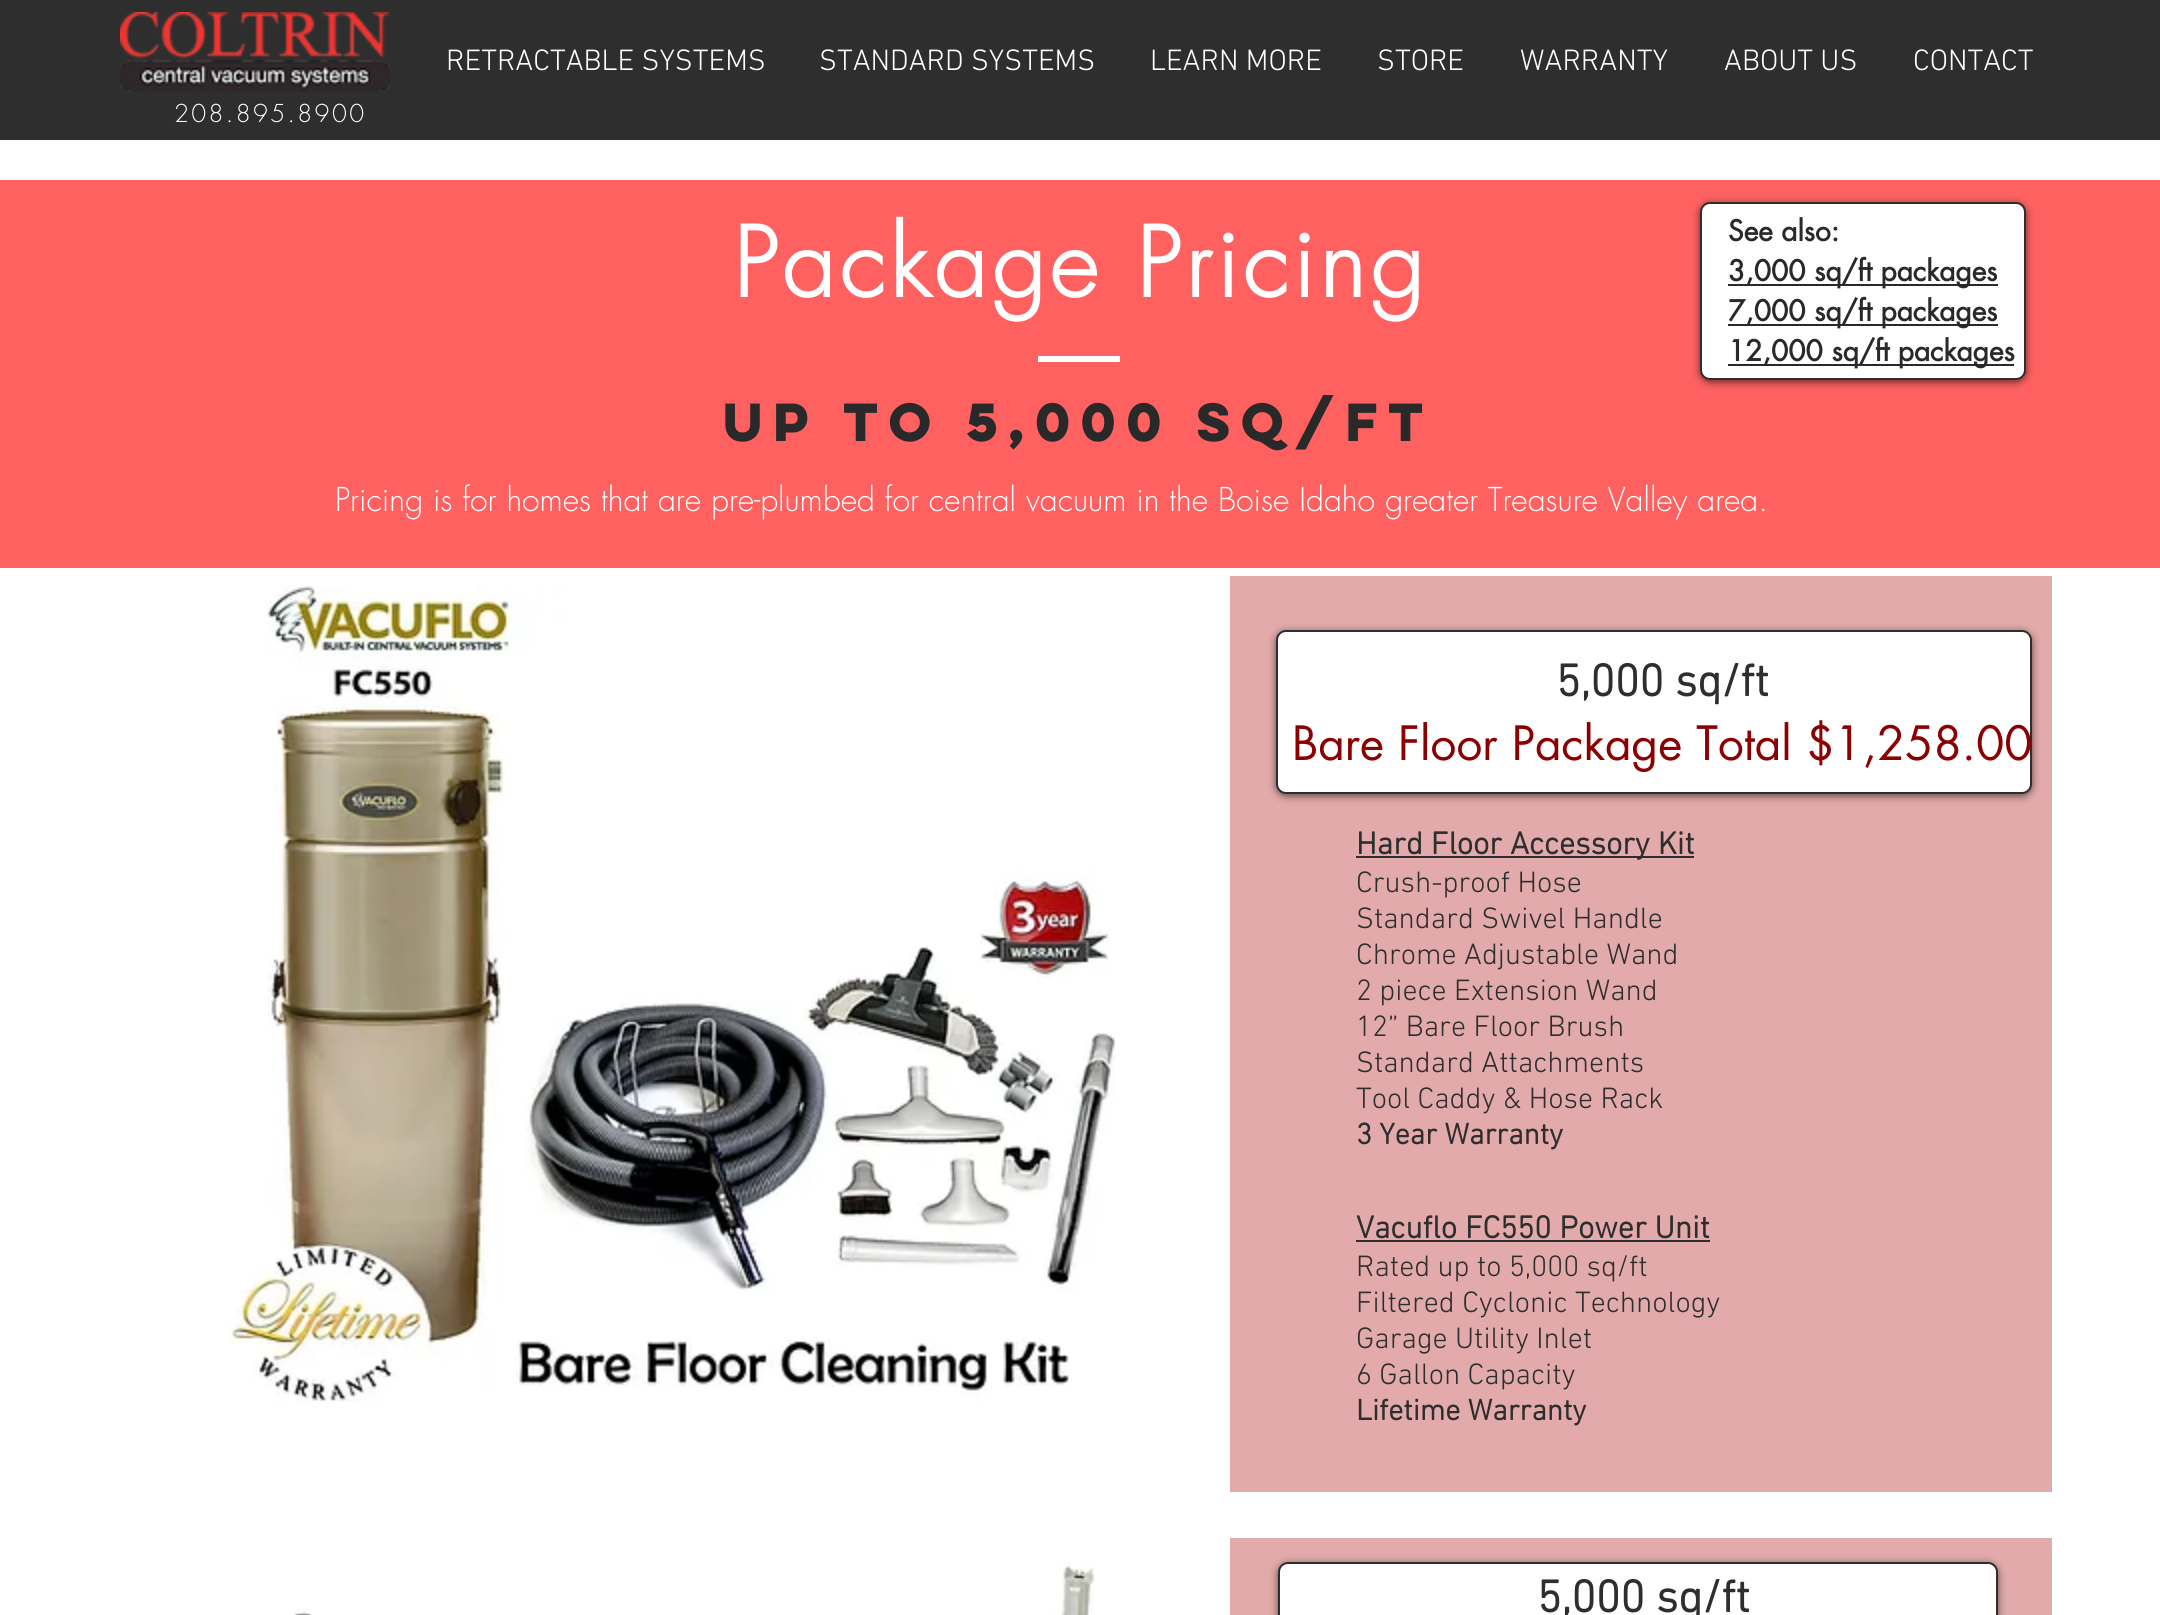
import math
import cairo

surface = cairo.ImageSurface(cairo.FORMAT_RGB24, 2160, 1615)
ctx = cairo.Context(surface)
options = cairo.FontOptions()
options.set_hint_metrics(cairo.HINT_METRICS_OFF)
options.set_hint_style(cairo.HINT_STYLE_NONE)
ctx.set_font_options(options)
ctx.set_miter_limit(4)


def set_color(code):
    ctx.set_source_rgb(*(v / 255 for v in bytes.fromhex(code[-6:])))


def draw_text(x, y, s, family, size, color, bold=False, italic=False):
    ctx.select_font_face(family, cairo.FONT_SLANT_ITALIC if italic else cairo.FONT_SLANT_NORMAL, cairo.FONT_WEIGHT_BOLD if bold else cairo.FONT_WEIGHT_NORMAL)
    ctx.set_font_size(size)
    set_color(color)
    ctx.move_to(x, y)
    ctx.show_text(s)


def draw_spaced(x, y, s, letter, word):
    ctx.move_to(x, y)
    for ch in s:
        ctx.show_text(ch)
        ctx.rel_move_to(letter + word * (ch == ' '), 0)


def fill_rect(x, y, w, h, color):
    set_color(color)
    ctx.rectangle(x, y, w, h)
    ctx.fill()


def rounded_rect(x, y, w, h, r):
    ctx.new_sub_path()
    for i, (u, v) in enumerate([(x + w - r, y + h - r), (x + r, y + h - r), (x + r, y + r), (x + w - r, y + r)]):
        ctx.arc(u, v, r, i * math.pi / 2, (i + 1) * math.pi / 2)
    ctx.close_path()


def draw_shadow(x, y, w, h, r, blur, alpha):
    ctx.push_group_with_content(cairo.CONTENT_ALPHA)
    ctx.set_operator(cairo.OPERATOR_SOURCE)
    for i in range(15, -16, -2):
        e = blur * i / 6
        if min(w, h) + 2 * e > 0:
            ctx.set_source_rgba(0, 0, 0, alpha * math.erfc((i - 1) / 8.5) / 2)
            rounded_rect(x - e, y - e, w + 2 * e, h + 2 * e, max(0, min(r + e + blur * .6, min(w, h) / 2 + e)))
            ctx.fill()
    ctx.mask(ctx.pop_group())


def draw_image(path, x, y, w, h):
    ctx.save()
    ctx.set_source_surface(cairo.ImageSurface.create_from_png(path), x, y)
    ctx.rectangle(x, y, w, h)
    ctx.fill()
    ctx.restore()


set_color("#ffffff")
ctx.paint()
fill_rect(0, 0, 2160, 140, "#2f2e2e")
draw_image("assets/img1.png", 120, 12, 270, 80)
draw_text(446, 70, "RETRACTABLE SYSTEMS", "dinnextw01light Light", 30, "#ffffff")
draw_text(819, 70, "STANDARD SYSTEMS", "dinnextw01light Light", 30, "#ffffff")
draw_text(1150, 70, "LEARN MORE", "dinnextw01light Light", 30, "#ffffff")
draw_text(1377, 70, "STORE", "dinnextw01light Light", 30, "#ffffff")
draw_text(1520, 70, "WARRANTY", "dinnextw01light Light", 30, "#ffffff")
draw_text(1724, 70, "ABOUT US", "dinnextw01light Light", 30, "#ffffff")
draw_text(1913, 70, "CONTACT", "dinnextw01light Light", 30, "#ffffff")
ctx.select_font_face("futura Light")
ctx.set_font_size(24)
draw_spaced(174, 122, "208.895.8900", 2.4, 0)
fill_rect(0, 180, 2160, 388, "#ff6161")
ctx.select_font_face("futura", cairo.FONT_SLANT_NORMAL, cairo.FONT_WEIGHT_BOLD)
ctx.set_font_size(94)
set_color("#ffffff")
draw_spaced(733, 297, "Package Pricing", 4.75, 0)
set_color("#000000")
draw_shadow(1700, 204, 326, 178, 10, 4, 0.6)
set_color("#ffffff")
rounded_rect(1701, 203, 324, 176, 9)
ctx.fill_preserve()
set_color("#2f2e2e")
ctx.stroke()
draw_text(1728, 241, "See also:", "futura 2", 28, "#292929", bold=True)
fill_rect(1728, 284, 270, 2, "#292929")
draw_text(1728, 281, "3,000 sq/ft packages", "futura 2", 28, "#292929", bold=True)
fill_rect(1728, 324, 270, 2, "#292929")
draw_text(1728, 321, "7,000 sq/ft packages", "futura 2", 28, "#292929", bold=True)
fill_rect(1728, 364, 286, 2, "#292929")
draw_text(1728, 361, "12,000 sq/ft packages", "futura 2", 28, "#292929", bold=True)
fill_rect(1038, 356, 82, 6, "#ffffff")
draw_text(723, 441, "up to 5,000 sq/ft", "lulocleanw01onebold", 48, "#292929", bold=True)
draw_text(335, 511, "Pricing is for homes that are pre-plumbed for central vacuum in the Boise Idaho greater Treasure Valley area.", "futura Light", 32, "#ffffff")
draw_image("assets/img2.png", 228, 586, 888, 816)
fill_rect(1230, 576, 822, 916, "#e2aaaa")
set_color("#000000")
draw_shadow(1276, 632, 756, 164, 10, 4, 0.6)
set_color("#ffffff")
rounded_rect(1277, 631, 754, 162, 9)
ctx.fill_preserve()
set_color("#2f2e2e")
ctx.stroke()
draw_text(1556, 696, "5,000 sq/ft", "dinnextw01light", 46, "#2f2e2e", bold=True)
draw_text(1292, 760, "Bare Floor Package Total $1,258.00", "futura", 46, "#8b0000")
fill_rect(1356, 856, 338, 2, "#2f2e2e")
draw_text(1356, 854, "Hard Floor Accessory Kit", "dinnextw01light", 32, "#2f2e2e", bold=True)
draw_text(1356, 892, "Crush-proof Hose", "dinnextw01light Light", 30, "#2f2e2e")
draw_text(1356, 928, "Standard Swivel Handle", "dinnextw01light Light", 30, "#2f2e2e")
draw_text(1356, 964, "Chrome Adjustable Wand", "dinnextw01light Light", 30, "#2f2e2e")
draw_text(1356, 1000, "2 piece Extension Wand", "dinnextw01light Light", 30, "#2f2e2e")
draw_text(1356, 1036, "12” Bare Floor Brush", "dinnextw01light Light", 30, "#2f2e2e")
draw_text(1356, 1072, "Standard Attachments", "dinnextw01light Light", 30, "#2f2e2e")
draw_text(1356, 1108, "Tool Caddy & Hose Rack", "dinnextw01light Light", 30, "#2f2e2e")
draw_text(1356, 1144, "3 Year Warranty", "dinnextw01light", 30, "#2f2e2e", bold=True)
draw_text(1356, 1238, "Vacuflo FC550 Power Unit", "dinnextw01light", 32, "#2f2e2e", bold=True)
fill_rect(1356, 1240, 354, 2, "#2f2e2e")
draw_text(1356, 1276, "Rated up to 5,000 sq/ft", "dinnextw01light Light", 30, "#2f2e2e")
draw_text(1356, 1312, "Filtered Cyclonic Technology", "dinnextw01light Light", 30, "#2f2e2e")
draw_text(1356, 1348, "Garage Utility Inlet", "dinnextw01light Light", 30, "#2f2e2e")
draw_text(1356, 1384, "6 Gallon Capacity", "dinnextw01light Light", 30, "#2f2e2e")
draw_text(1356, 1420, "Lifetime Warranty", "dinnextw01light", 30, "#2f2e2e", bold=True)
draw_image("assets/img3.png", 293, 1560, 802, 55)
fill_rect(1230, 1538, 822, 77, "#e2aaaa")
set_color("#000000")
draw_shadow(1278, 1564, 720, 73, 10, 4, 0.6)
set_color("#ffffff")
rounded_rect(1279, 1563, 718, 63, 9)
ctx.fill_preserve()
set_color("#2f2e2e")
ctx.stroke()
draw_text(1537, 1612, "5,000 sq/ft", "dinnextw01light", 46, "#2f2e2e", bold=True)
surface.write_to_png("output.png")
